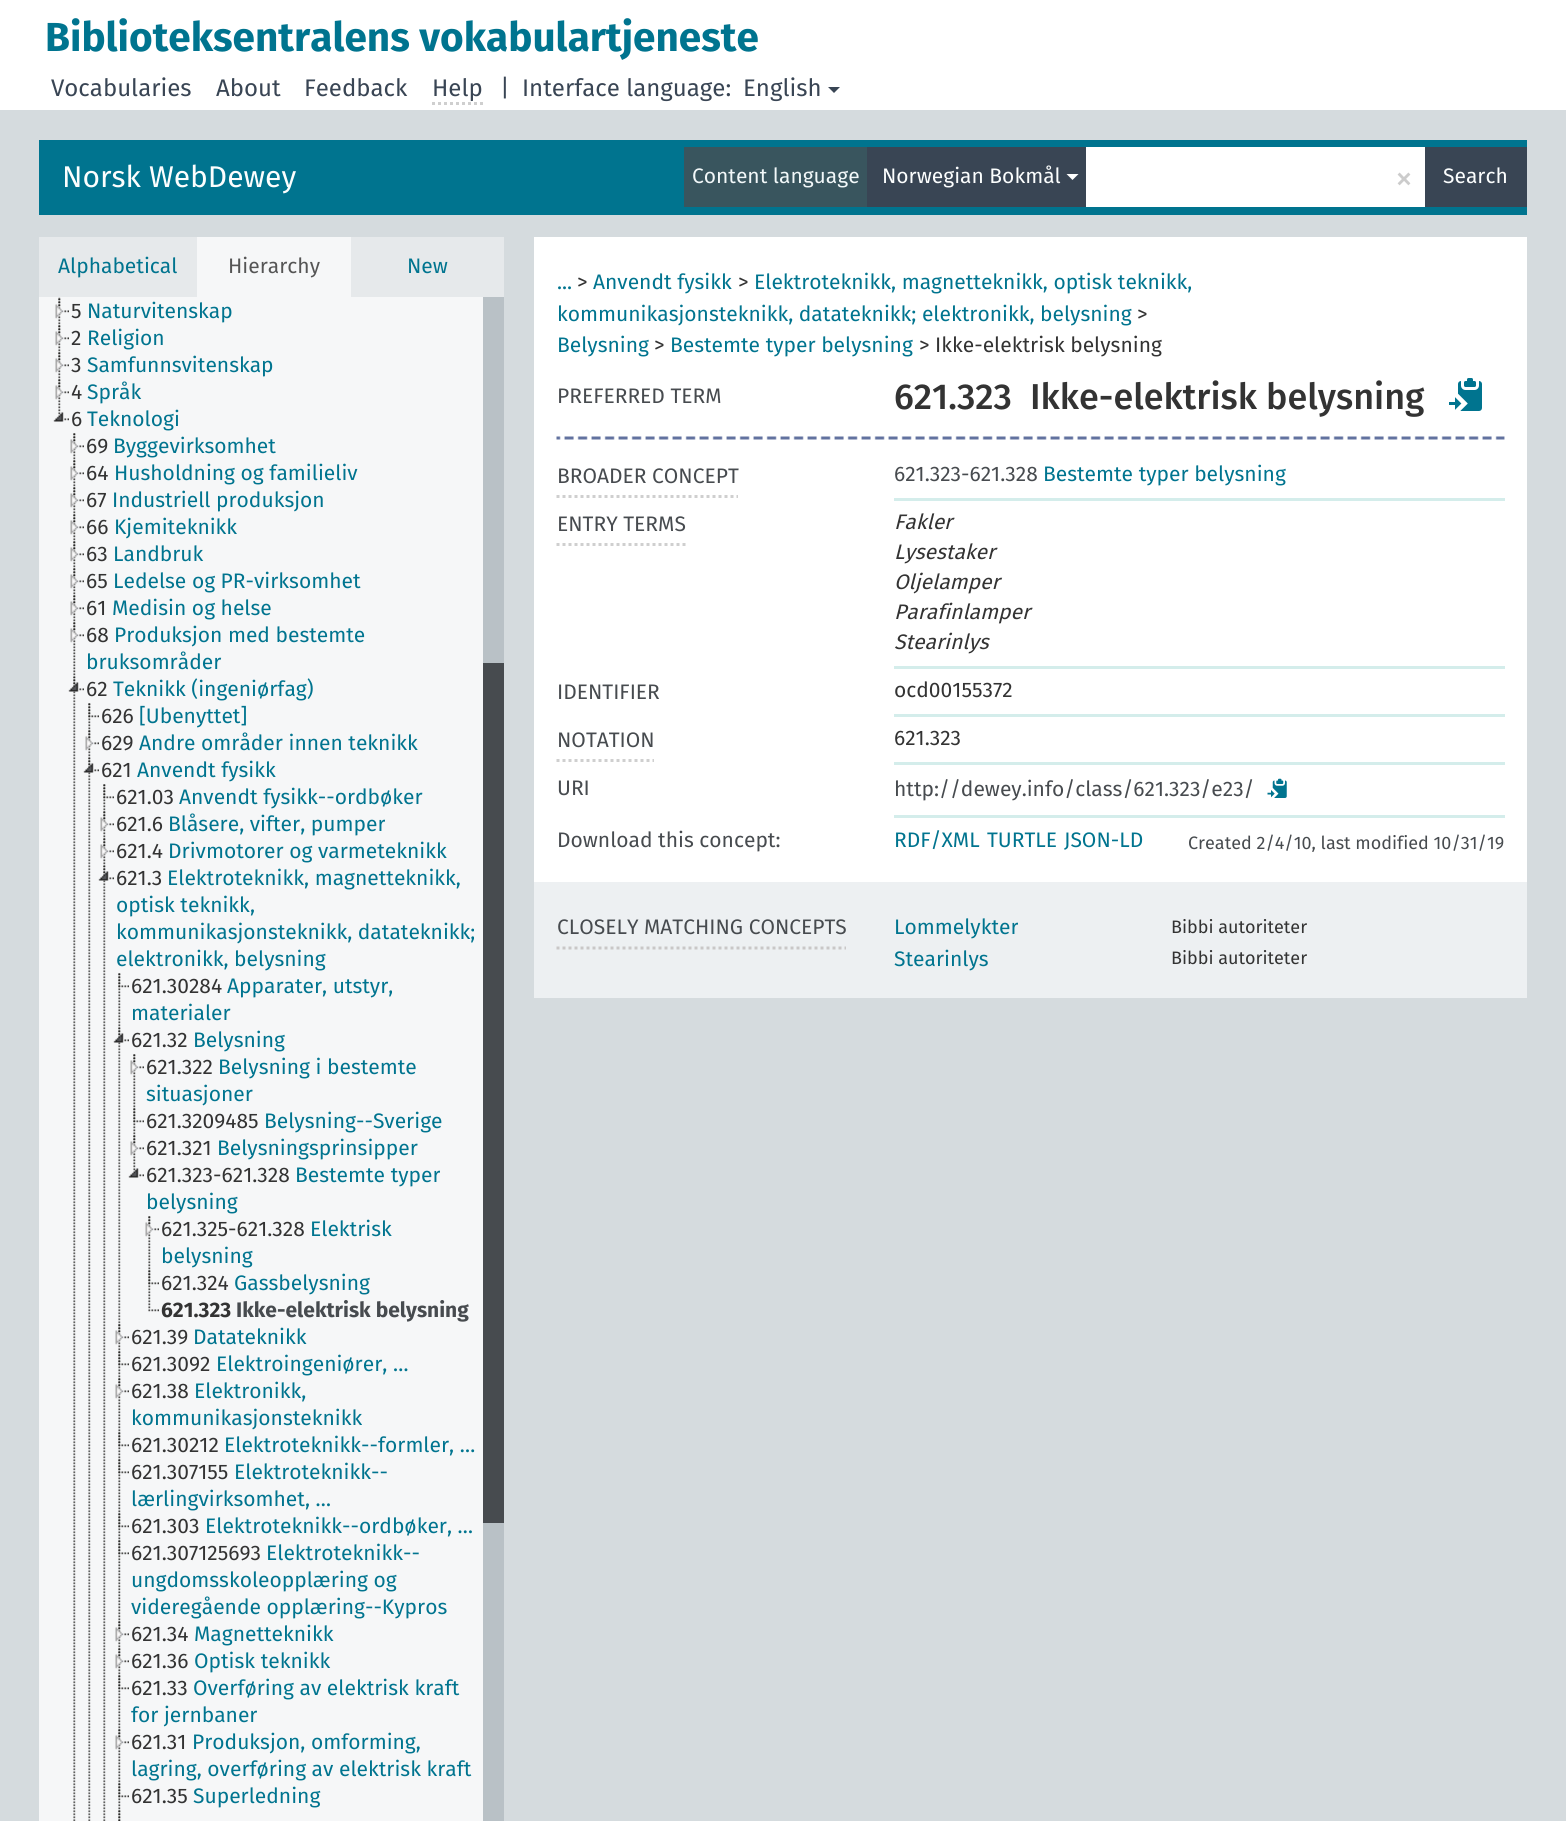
import math
import cairo

surface = cairo.ImageSurface(cairo.FORMAT_RGB24, 1566, 1821)
ctx = cairo.Context(surface)
options = cairo.FontOptions()
options.set_hint_metrics(cairo.HINT_METRICS_OFF)
options.set_hint_style(cairo.HINT_STYLE_NONE)
ctx.set_font_options(options)
ctx.set_miter_limit(4)


def set_color(code):
    ctx.set_source_rgb(*(v / 255 for v in bytes.fromhex(code[-6:])))


def draw_text(x, y, s, family, size, color, bold=False, italic=False):
    ctx.select_font_face(family, cairo.FONT_SLANT_ITALIC if italic else cairo.FONT_SLANT_NORMAL, cairo.FONT_WEIGHT_BOLD if bold else cairo.FONT_WEIGHT_NORMAL)
    ctx.set_font_size(size)
    set_color(color)
    ctx.move_to(x, y)
    ctx.show_text(s)


def fill_rect(x, y, w, h, color):
    set_color(color)
    ctx.rectangle(x, y, w, h)
    ctx.fill()


def draw_image(path, x, y, w, h):
    ctx.save()
    ctx.set_source_surface(cairo.ImageSurface.create_from_png(path), x, y)
    ctx.rectangle(x, y, w, h)
    ctx.fill()
    ctx.restore()


set_color("#d5dbde")
ctx.paint()
fill_rect(0, 0, 1566, 110, "#ffffff")
draw_text(45, 51, "Biblioteksentralens vokabulartjeneste", "Fira Sans", 40.5, "#00748f", bold=True)
draw_text(51, 96, "Vocabularies", "Fira Sans", 24, "#394554")
draw_text(216, 96, "About", "Fira Sans", 24, "#394554")
draw_text(304, 96, "Feedback", "Fira Sans", 24, "#394554")
draw_text(432, 96, "Help", "Fira Sans", 24, "#394554")
ctx.new_path()
ctx.move_to(432, 103.5)
ctx.line_to(483, 103.5)
set_color("#cfcfcf")
ctx.set_line_width(3)
ctx.set_dash([3, 3])
ctx.stroke()
draw_text(500, 96, "|", "Fira Sans", 24, "#394554")
draw_text(522, 96, "Interface language:", "Fira Sans", 24, "#394554")
draw_text(743, 96, "English", "Fira Sans", 24, "#394554")
ctx.new_path()
ctx.move_to(828, 87)
ctx.line_to(840, 87)
ctx.line_to(834, 93)
ctx.close_path()
ctx.fill()
fill_rect(39, 140, 1488, 75, "#00748f")
draw_text(62, 187, "Norsk WebDewey", "Fira Sans", 30, "#fcfefe")
fill_rect(684, 147, 183, 60, "#39555e")
draw_text(692, 183, "Content language", "Fira Sans", 21, "#f2f8f9")
fill_rect(867, 147, 219, 60, "#394554")
draw_text(882, 183, "Norwegian Bokmål", "Fira Sans", 21, "#fcfefe")
set_color("#ffffff")
ctx.new_path()
ctx.move_to(1066.5, 174)
ctx.line_to(1078.5, 174)
ctx.line_to(1072.5, 180)
ctx.close_path()
ctx.fill()
fill_rect(1086, 147, 339, 60, "#ffffff")
draw_text(1395, 190, "×", "Fira Sans", 36, "#cccccc")
fill_rect(1425, 147, 102, 60, "#394554")
draw_text(1443, 183, "Search", "Fira Sans", 21, "#fcfefe")
fill_rect(39, 237, 158, 60, "#e6e9eb")
draw_text(58, 273, "Alphabetical", "Fira Sans", 21, "#00748f")
fill_rect(197, 237, 154, 60, "#f6f7f8")
draw_text(228, 273, "Hierarchy", "Fira Sans", 21, "#555555")
fill_rect(351, 237, 153, 60, "#e6e9eb")
draw_text(407, 273, "New", "Fira Sans", 21, "#00748f")
fill_rect(39, 297, 444, 1524, "#f6f7f8")
draw_image("assets/img1.png", 58, 297, 3, 1)
draw_image("assets/img2.png", 58, 298, 3, 27)
draw_image("assets/img3.png", 55, 298, 14, 21)
draw_text(71, 318, "5", "Fira Sans", 21, "#333333")
draw_text(87, 318, "Naturvitenskap", "Fira Sans", 21, "#00748f")
draw_image("assets/img2.png", 58, 325, 3, 27)
draw_image("assets/img3.png", 55, 325, 14, 21)
draw_text(71, 345, "2", "Fira Sans", 21, "#333333")
draw_text(87, 345, "Religion", "Fira Sans", 21, "#00748f")
draw_image("assets/img2.png", 58, 352, 3, 27)
draw_image("assets/img3.png", 55, 352, 14, 21)
draw_text(71, 372, "3", "Fira Sans", 21, "#333333")
draw_text(87, 372, "Samfunnsvitenskap", "Fira Sans", 21, "#00748f")
draw_image("assets/img2.png", 58, 379, 3, 27)
draw_image("assets/img3.png", 55, 379, 14, 21)
draw_text(71, 399, "4", "Fira Sans", 21, "#333333")
draw_text(87, 399, "Språk", "Fira Sans", 21, "#00748f")
draw_image("assets/img4.png", 53, 406, 16, 16)
draw_text(71, 426, "6", "Fira Sans", 21, "#333333")
draw_text(87, 426, "Teknologi", "Fira Sans", 21, "#00748f")
draw_image("assets/img2.png", 73, 433, 3, 27)
draw_image("assets/img3.png", 70, 433, 14, 21)
draw_text(86, 453, "69", "Fira Sans", 21, "#333333")
draw_text(113, 453, "Byggevirksomhet", "Fira Sans", 21, "#00748f")
draw_image("assets/img2.png", 73, 460, 3, 27)
draw_image("assets/img3.png", 70, 460, 14, 21)
draw_text(86, 480, "64", "Fira Sans", 21, "#333333")
draw_text(114, 480, "Husholdning og familieliv", "Fira Sans", 21, "#00748f")
draw_image("assets/img2.png", 73, 487, 3, 27)
draw_image("assets/img3.png", 70, 487, 14, 21)
draw_text(86, 507, "67", "Fira Sans", 21, "#333333")
draw_text(112, 507, "Industriell produksjon", "Fira Sans", 21, "#00748f")
draw_image("assets/img2.png", 73, 514, 3, 27)
draw_image("assets/img3.png", 70, 514, 14, 21)
draw_text(86, 534, "66", "Fira Sans", 21, "#333333")
draw_text(114, 534, "Kjemiteknikk", "Fira Sans", 21, "#00748f")
draw_image("assets/img2.png", 73, 541, 3, 27)
draw_image("assets/img3.png", 70, 541, 14, 21)
draw_text(86, 561, "63", "Fira Sans", 21, "#333333")
draw_text(113, 561, "Landbruk", "Fira Sans", 21, "#00748f")
draw_image("assets/img2.png", 73, 568, 3, 27)
draw_image("assets/img3.png", 70, 568, 14, 21)
draw_text(86, 588, "65", "Fira Sans", 21, "#333333")
draw_text(113, 588, "Ledelse og PR-virksomhet", "Fira Sans", 21, "#00748f")
draw_image("assets/img2.png", 73, 595, 3, 27)
draw_image("assets/img3.png", 70, 595, 14, 21)
draw_text(86, 615, "61", "Fira Sans", 21, "#333333")
draw_text(112, 615, "Medisin og helse", "Fira Sans", 21, "#00748f")
draw_image("assets/img5.png", 73, 622, 3, 54)
draw_image("assets/img3.png", 70, 622, 14, 21)
draw_text(86, 642, "68", "Fira Sans", 21, "#333333")
draw_text(114, 642, "Produksjon med bestemte", "Fira Sans", 21, "#00748f")
draw_text(86, 669, "bruksområder", "Fira Sans", 21, "#00748f")
draw_image("assets/img6.png", 73, 676, 3, 1145)
draw_image("assets/img7.png", 68, 676, 16, 16)
draw_text(86, 696, "62", "Fira Sans", 21, "#333333")
draw_text(113, 696, "Teknikk (ingeniørfag)", "Fira Sans", 21, "#00748f")
draw_image("assets/img2.png", 88, 703, 3, 27)
draw_image("assets/img8.png", 88, 703, 11, 15)
draw_text(101, 723, "626", "Fira Sans", 21, "#333333")
draw_text(139, 723, "[Ubenyttet]", "Fira Sans", 21, "#00748f")
draw_image("assets/img2.png", 88, 730, 3, 27)
draw_image("assets/img3.png", 85, 730, 14, 21)
draw_text(101, 750, "629", "Fira Sans", 21, "#333333")
draw_text(139, 750, "Andre områder innen teknikk", "Fira Sans", 21, "#00748f")
draw_image("assets/img9.png", 88, 757, 3, 1064)
draw_image("assets/img7.png", 83, 757, 16, 16)
draw_text(101, 777, "621", "Fira Sans", 21, "#333333")
draw_text(137, 777, "Anvendt fysikk", "Fira Sans", 21, "#00748f")
draw_image("assets/img2.png", 103, 784, 3, 27)
draw_image("assets/img8.png", 103, 784, 11, 15)
draw_text(116, 804, "621.03", "Fira Sans", 21, "#333333")
draw_text(179, 804, "Anvendt fysikk--ordbøker", "Fira Sans", 21, "#00748f")
draw_image("assets/img2.png", 103, 811, 3, 27)
draw_image("assets/img3.png", 100, 811, 14, 21)
draw_text(116, 831, "621.6", "Fira Sans", 21, "#333333")
draw_text(168, 831, "Blåsere, vifter, pumper", "Fira Sans", 21, "#00748f")
draw_image("assets/img2.png", 103, 838, 3, 27)
draw_image("assets/img3.png", 100, 838, 14, 21)
draw_text(116, 858, "621.4", "Fira Sans", 21, "#333333")
draw_text(168, 858, "Drivmotorer og varmeteknikk", "Fira Sans", 21, "#00748f")
draw_image("assets/img10.png", 103, 865, 3, 956)
draw_image("assets/img7.png", 98, 865, 16, 16)
draw_text(116, 885, "621.3", "Fira Sans", 21, "#333333")
draw_text(167, 885, "Elektroteknikk, magnetteknikk,", "Fira Sans", 21, "#00748f")
draw_text(116, 912, "optisk teknikk,", "Fira Sans", 21, "#00748f")
draw_text(116, 939, "kommunikasjonsteknikk, datateknikk;", "Fira Sans", 21, "#00748f")
draw_text(116, 966, "elektronikk, belysning", "Fira Sans", 21, "#00748f")
draw_image("assets/img5.png", 118, 973, 3, 54)
draw_image("assets/img8.png", 118, 973, 11, 15)
draw_text(131, 993, "621.30284", "Fira Sans", 21, "#333333")
draw_text(227, 993, "Apparater, utstyr,", "Fira Sans", 21, "#00748f")
draw_text(131, 1020, "materialer", "Fira Sans", 21, "#00748f")
draw_image("assets/img11.png", 118, 1027, 3, 298)
draw_image("assets/img7.png", 113, 1027, 16, 16)
draw_text(131, 1047, "621.32", "Fira Sans", 21, "#333333")
draw_text(193, 1047, "Belysning", "Fira Sans", 21, "#00748f")
draw_image("assets/img5.png", 133, 1054, 3, 54)
draw_image("assets/img3.png", 130, 1054, 14, 21)
draw_text(146, 1074, "621.322", "Fira Sans", 21, "#333333")
draw_text(218, 1074, "Belysning i bestemte", "Fira Sans", 21, "#00748f")
draw_text(146, 1101, "situasjoner", "Fira Sans", 21, "#00748f")
draw_image("assets/img2.png", 133, 1108, 3, 27)
draw_image("assets/img8.png", 133, 1108, 11, 15)
draw_text(146, 1128, "621.3209485", "Fira Sans", 21, "#333333")
draw_text(264, 1128, "Belysning--Sverige", "Fira Sans", 21, "#00748f")
draw_image("assets/img2.png", 133, 1135, 3, 27)
draw_image("assets/img3.png", 130, 1135, 14, 21)
draw_text(146, 1155, "621.321", "Fira Sans", 21, "#333333")
draw_text(217, 1155, "Belysningsprinsipper", "Fira Sans", 21, "#00748f")
draw_image("assets/img4.png", 128, 1162, 16, 16)
draw_text(146, 1182, "621.323-621.328", "Fira Sans", 21, "#333333")
draw_text(295, 1182, "Bestemte typer", "Fira Sans", 21, "#00748f")
draw_text(146, 1209, "belysning", "Fira Sans", 21, "#00748f")
draw_image("assets/img5.png", 148, 1216, 3, 54)
draw_image("assets/img3.png", 145, 1216, 14, 21)
draw_text(161, 1236, "621.325-621.328", "Fira Sans", 21, "#333333")
draw_text(310, 1236, "Elektrisk", "Fira Sans", 21, "#00748f")
draw_text(161, 1263, "belysning", "Fira Sans", 21, "#00748f")
draw_image("assets/img2.png", 148, 1270, 3, 27)
draw_image("assets/img8.png", 148, 1270, 11, 15)
draw_text(161, 1290, "621.324", "Fira Sans", 21, "#333333")
draw_text(234, 1290, "Gassbelysning", "Fira Sans", 21, "#00748f")
draw_image("assets/img12.png", 148, 1297, 11, 15)
draw_text(161, 1317, "621.323", "Fira Sans", 21, "#333333", bold=True)
draw_text(236, 1317, "Ikke-elektrisk belysning", "Fira Sans", 21, "#474b4f", bold=True)
draw_image("assets/img13.png", 118, 1324, 3, 27)
draw_image("assets/img14.png", 115, 1324, 14, 21)
draw_text(131, 1344, "621.39", "Fira Sans", 21, "#333333")
draw_text(193, 1344, "Datateknikk", "Fira Sans", 21, "#00748f")
draw_image("assets/img2.png", 118, 1351, 3, 27)
draw_image("assets/img8.png", 118, 1351, 11, 15)
draw_text(131, 1371, "621.3092", "Fira Sans", 21, "#333333")
draw_text(216, 1371, "Elektroingeniører, …", "Fira Sans", 21, "#00748f")
draw_image("assets/img5.png", 118, 1378, 3, 54)
draw_image("assets/img3.png", 115, 1378, 14, 21)
draw_text(131, 1398, "621.38", "Fira Sans", 21, "#333333")
draw_text(194, 1398, "Elektronikk,", "Fira Sans", 21, "#00748f")
draw_text(131, 1425, "kommunikasjonsteknikk", "Fira Sans", 21, "#00748f")
draw_image("assets/img2.png", 118, 1432, 3, 27)
draw_image("assets/img8.png", 118, 1432, 11, 15)
draw_text(131, 1452, "621.30212", "Fira Sans", 21, "#333333")
draw_text(224, 1452, "Elektroteknikk--formler, …", "Fira Sans", 21, "#00748f")
draw_image("assets/img5.png", 118, 1459, 3, 54)
draw_image("assets/img8.png", 118, 1459, 11, 15)
draw_text(131, 1479, "621.307155", "Fira Sans", 21, "#333333")
draw_text(234, 1479, "Elektroteknikk--", "Fira Sans", 21, "#00748f")
draw_text(131, 1506, "lærlingvirksomhet, …", "Fira Sans", 21, "#00748f")
draw_image("assets/img2.png", 118, 1513, 3, 27)
draw_image("assets/img8.png", 118, 1513, 11, 15)
draw_text(131, 1533, "621.303", "Fira Sans", 21, "#333333")
draw_text(205, 1533, "Elektroteknikk--ordbøker, …", "Fira Sans", 21, "#00748f")
draw_image("assets/img15.png", 118, 1540, 3, 81)
draw_image("assets/img8.png", 118, 1540, 11, 15)
draw_text(131, 1560, "621.307125693", "Fira Sans", 21, "#333333")
draw_text(266, 1560, "Elektroteknikk--", "Fira Sans", 21, "#00748f")
draw_text(131, 1587, "ungdomsskoleopplæring og", "Fira Sans", 21, "#00748f")
draw_text(131, 1614, "videregående opplæring--Kypros", "Fira Sans", 21, "#00748f")
draw_image("assets/img2.png", 118, 1621, 3, 27)
draw_image("assets/img3.png", 115, 1621, 14, 21)
draw_text(131, 1641, "621.34", "Fira Sans", 21, "#333333")
draw_text(194, 1641, "Magnetteknikk", "Fira Sans", 21, "#00748f")
draw_image("assets/img2.png", 118, 1648, 3, 27)
draw_image("assets/img3.png", 115, 1648, 14, 21)
draw_text(131, 1668, "621.36", "Fira Sans", 21, "#333333")
draw_text(194, 1668, "Optisk teknikk", "Fira Sans", 21, "#00748f")
draw_image("assets/img5.png", 118, 1675, 3, 54)
draw_image("assets/img8.png", 118, 1675, 11, 15)
draw_text(131, 1695, "621.33", "Fira Sans", 21, "#333333")
draw_text(193, 1695, "Overføring av elektrisk kraft", "Fira Sans", 21, "#00748f")
draw_text(131, 1722, "for jernbaner", "Fira Sans", 21, "#00748f")
draw_image("assets/img5.png", 118, 1729, 3, 54)
draw_image("assets/img3.png", 115, 1729, 14, 21)
draw_text(131, 1749, "621.31", "Fira Sans", 21, "#333333")
draw_text(192, 1749, "Produksjon, omforming,", "Fira Sans", 21, "#00748f")
draw_text(131, 1776, "lagring, overføring av elektrisk kraft", "Fira Sans", 21, "#00748f")
draw_image("assets/img2.png", 118, 1783, 3, 27)
draw_image("assets/img8.png", 118, 1783, 11, 15)
draw_text(131, 1803, "621.35", "Fira Sans", 21, "#333333")
draw_text(193, 1803, "Superledning", "Fira Sans", 21, "#00748f")
draw_image("assets/img16.png", 118, 1810, 3, 11)
draw_image("assets/img17.png", 118, 1810, 3, 11)
fill_rect(483, 297, 21, 1524, "#b9c1c6")
fill_rect(483, 663, 21, 860, "#474b4f")
fill_rect(534, 237, 993, 645, "#ffffff")
draw_text(577, 289, ">", "Fira Sans", 21, "#333333")
draw_text(593, 289, "Anvendt fysikk", "Fira Sans", 21, "#00748f")
draw_text(738, 289, ">", "Fira Sans", 21, "#333333")
draw_text(754, 289, "Elektroteknikk, magnetteknikk, optisk teknikk,", "Fira Sans", 21, "#00748f")
draw_text(557, 289, "...", "Fira Sans", 21, "#00748f")
draw_text(557, 321, "kommunikasjonsteknikk, datateknikk; elektronikk, belysning", "Fira Sans", 21, "#00748f")
draw_text(1137, 321, ">", "Fira Sans", 21, "#333333")
draw_text(557, 352, "Belysning", "Fira Sans", 21, "#00748f")
draw_text(654, 352, ">", "Fira Sans", 21, "#333333")
draw_text(670, 352, "Bestemte typer belysning", "Fira Sans", 21, "#00748f")
draw_text(919, 352, "> Ikke-elektrisk belysning", "Fira Sans", 21, "#333333")
draw_text(557, 403, "PREFERRED TERM", "Fira Sans", 21, "#474b4f")
draw_text(894, 409, "621.323", "Fira Sans Medium", 36, "#333333")
draw_text(1030, 409, "Ikke-elektrisk belysning", "Fira Sans Medium", 36, "#333333")
draw_image("assets/img18.png", 1449, 378, 33, 33)
draw_image("assets/img19.png", 556, 436, 949, 4)
ctx.new_path()
ctx.move_to(556.5, 496.5)
ctx.line_to(738, 496.5)
set_color("#cfcfcf")
ctx.stroke()
draw_text(557, 483, "BROADER CONCEPT", "Fira Sans", 21, "#474b4f")
fill_rect(894, 498, 611, 3, "#d4edeb")
draw_text(894, 481, "621.323-621.328", "Fira Sans", 21, "#474b4f")
draw_text(1043, 481, "Bestemte typer belysning", "Fira Sans", 21, "#00748f")
ctx.new_path()
ctx.move_to(556.5, 544.5)
ctx.line_to(685.5, 544.5)
set_color("#cfcfcf")
ctx.stroke()
draw_text(557, 531, "ENTRY TERMS", "Fira Sans", 21, "#474b4f")
fill_rect(894, 666, 611, 3, "#d4edeb")
draw_text(894, 529, "Fakler", "Fira Sans", 21, "#333333", italic=True)
draw_text(894, 559, "Lysestaker", "Fira Sans", 21, "#333333", italic=True)
draw_text(894, 589, "Oljelamper", "Fira Sans", 21, "#333333", italic=True)
draw_text(894, 619, "Parafinlamper", "Fira Sans", 21, "#333333", italic=True)
draw_text(894, 649, "Stearinlys", "Fira Sans", 21, "#333333", italic=True)
draw_text(557, 699, "IDENTIFIER", "Fira Sans", 21, "#474b4f")
fill_rect(894, 714, 611, 3, "#d4edeb")
draw_text(894, 697, "ocd00155372", "Fira Sans", 21, "#333333")
ctx.new_path()
ctx.move_to(556.5, 760.5)
ctx.line_to(654, 760.5)
set_color("#cfcfcf")
ctx.stroke()
draw_text(557, 747, "NOTATION", "Fira Sans", 21, "#474b4f")
fill_rect(894, 762, 611, 3, "#d4edeb")
draw_text(894, 745, "621.323", "Fira Sans", 21, "#333333")
draw_text(557, 795, "URI", "Fira Sans", 21, "#474b4f")
fill_rect(894, 815, 611, 3, "#d4edeb")
draw_text(894, 796, "http://dewey.info/class/621.323/e23/", "Fira Sans", 21, "#474b4f")
draw_image("assets/img20.png", 1267, 778, 20, 20)
draw_text(557, 847, "Download this concept:", "Fira Sans", 21, "#474b4f")
draw_text(894, 847, "RDF/XML", "Fira Sans", 21, "#00748f")
draw_text(987, 847, "TURTLE", "Fira Sans", 21, "#00748f")
draw_text(1064, 847, "JSON-LD", "Fira Sans", 21, "#00748f")
draw_text(1188, 849, "Created 2/4/10, last modified 10/31/19", "Fira Sans", 18, "#474b4f")
fill_rect(534, 882, 993, 116, "#edf0f2")
ctx.new_path()
ctx.move_to(556.5, 948)
ctx.line_to(846, 948)
set_color("#c9c7c7")
ctx.stroke()
draw_text(557, 934, "CLOSELY MATCHING CONCEPTS", "Fira Sans", 21, "#474b4f")
draw_text(894, 934, "Lommelykter", "Fira Sans", 21, "#00748f")
draw_text(1171, 933, "Bibbi autoriteter", "Fira Sans", 18, "#333333")
draw_text(894, 966, "Stearinlys", "Fira Sans", 21, "#00748f")
draw_text(1171, 964, "Bibbi autoriteter", "Fira Sans", 18, "#333333")
surface.write_to_png("output.png")
